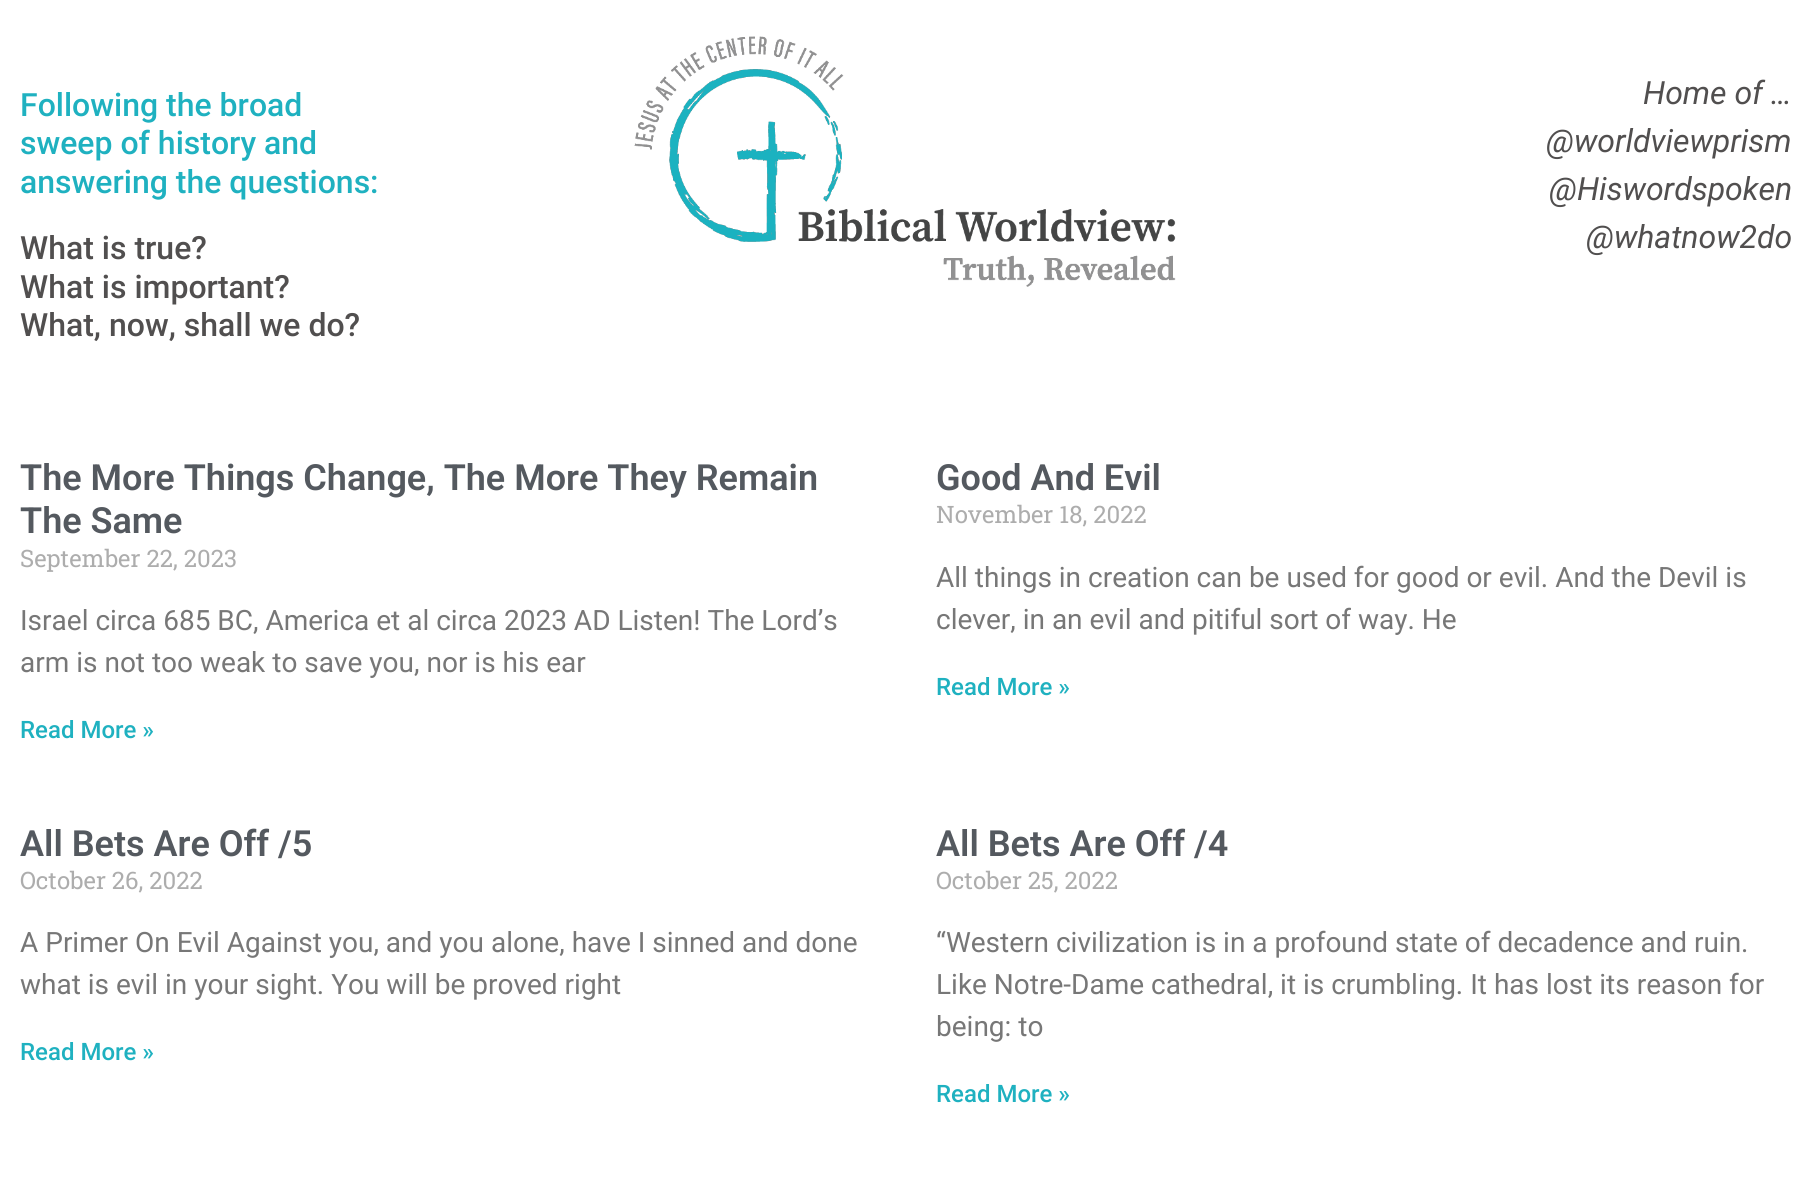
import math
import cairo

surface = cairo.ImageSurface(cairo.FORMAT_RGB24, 1812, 1203)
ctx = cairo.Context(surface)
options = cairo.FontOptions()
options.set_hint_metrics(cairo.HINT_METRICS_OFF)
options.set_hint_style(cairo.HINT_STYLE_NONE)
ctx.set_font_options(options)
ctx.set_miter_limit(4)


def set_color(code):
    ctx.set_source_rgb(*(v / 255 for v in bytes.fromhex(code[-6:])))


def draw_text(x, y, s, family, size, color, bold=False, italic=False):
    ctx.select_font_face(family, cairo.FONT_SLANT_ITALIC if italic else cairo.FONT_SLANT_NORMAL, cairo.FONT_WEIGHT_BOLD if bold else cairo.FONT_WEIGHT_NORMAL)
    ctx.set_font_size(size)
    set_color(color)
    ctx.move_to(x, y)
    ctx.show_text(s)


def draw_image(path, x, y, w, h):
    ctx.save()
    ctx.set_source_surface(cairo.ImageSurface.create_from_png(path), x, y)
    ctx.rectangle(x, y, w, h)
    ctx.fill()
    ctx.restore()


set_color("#ffffff")
ctx.paint()
draw_text(20, 116, "Following the broad", "Roboto Medium", 32, "#1fb1c0")
draw_text(20, 154, "sweep of history and", "Roboto Medium", 32, "#1fb1c0")
draw_text(20, 193, "answering the questions:", "Roboto Medium", 32, "#1fb1c0")
draw_text(20, 259, "What is true?", "Roboto Medium", 32, "#514f4f")
draw_text(20, 298, "What is important?", "Roboto Medium", 32, "#514f4f")
draw_text(20, 336, "What, now, shall we do?", "Roboto Medium", 32, "#514f4f")
draw_image("assets/img1.png", 634, 36, 542, 251)
draw_text(1643, 104, "Home of …", "Roboto", 32, "#514f4f", italic=True)
draw_text(1546, 152, "@worldviewprism", "Roboto", 32, "#514f4f", italic=True)
draw_text(1549, 200, "@Hiswordspoken", "Roboto", 32, "#514f4f", italic=True)
draw_text(1586, 248, "@whatnow2do", "Roboto", 32, "#514f4f", italic=True)
draw_text(20, 490, "The More Things Change, The More They Remain", "Roboto SemiBold", 36, "#54595f")
draw_text(20, 533, "The Same", "Roboto SemiBold", 36, "#54595f")
draw_text(20, 567, "September 22, 2023", "Roboto Slab", 24, "#adadad")
draw_text(20, 630, "Israel circa 685 BC, America et al circa 2023 AD Listen! The Lord’s", "Roboto", 28, "#777777")
draw_text(20, 672, "arm is not too weak to save you, nor is his ear", "Roboto", 28, "#777777")
draw_text(20, 738, "Read More »", "Roboto Medium", 24, "#1fb1c0")
draw_text(936, 490, "Good And Evil", "Roboto SemiBold", 36, "#54595f")
draw_text(936, 523, "November 18, 2022", "Roboto Slab", 24, "#adadad")
draw_text(936, 587, "All things in creation can be used for good or evil. And the Devil is", "Roboto", 28, "#777777")
draw_text(936, 629, "clever, in an evil and pitiful sort of way. He", "Roboto", 28, "#777777")
draw_text(936, 695, "Read More »", "Roboto Medium", 24, "#1fb1c0")
draw_text(20, 856, "All Bets Are Off /5", "Roboto SemiBold", 36, "#54595f")
draw_text(20, 889, "October 26, 2022", "Roboto Slab", 24, "#adadad")
draw_text(20, 952, "A Primer On Evil Against you, and you alone, have I sinned and done", "Roboto", 28, "#777777")
draw_text(20, 994, "what is evil in your sight. You will be proved right", "Roboto", 28, "#777777")
draw_text(20, 1060, "Read More »", "Roboto Medium", 24, "#1fb1c0")
draw_text(936, 856, "All Bets Are Off /4", "Roboto SemiBold", 36, "#54595f")
draw_text(936, 889, "October 25, 2022", "Roboto Slab", 24, "#adadad")
draw_text(936, 952, "“Western civilization is in a profound state of decadence and ruin.", "Roboto", 28, "#777777")
draw_text(936, 994, "Like Notre-Dame cathedral, it is crumbling. It has lost its reason for", "Roboto", 28, "#777777")
draw_text(936, 1036, "being: to", "Roboto", 28, "#777777")
draw_text(936, 1102, "Read More »", "Roboto Medium", 24, "#1fb1c0")
surface.write_to_png("output.png")
